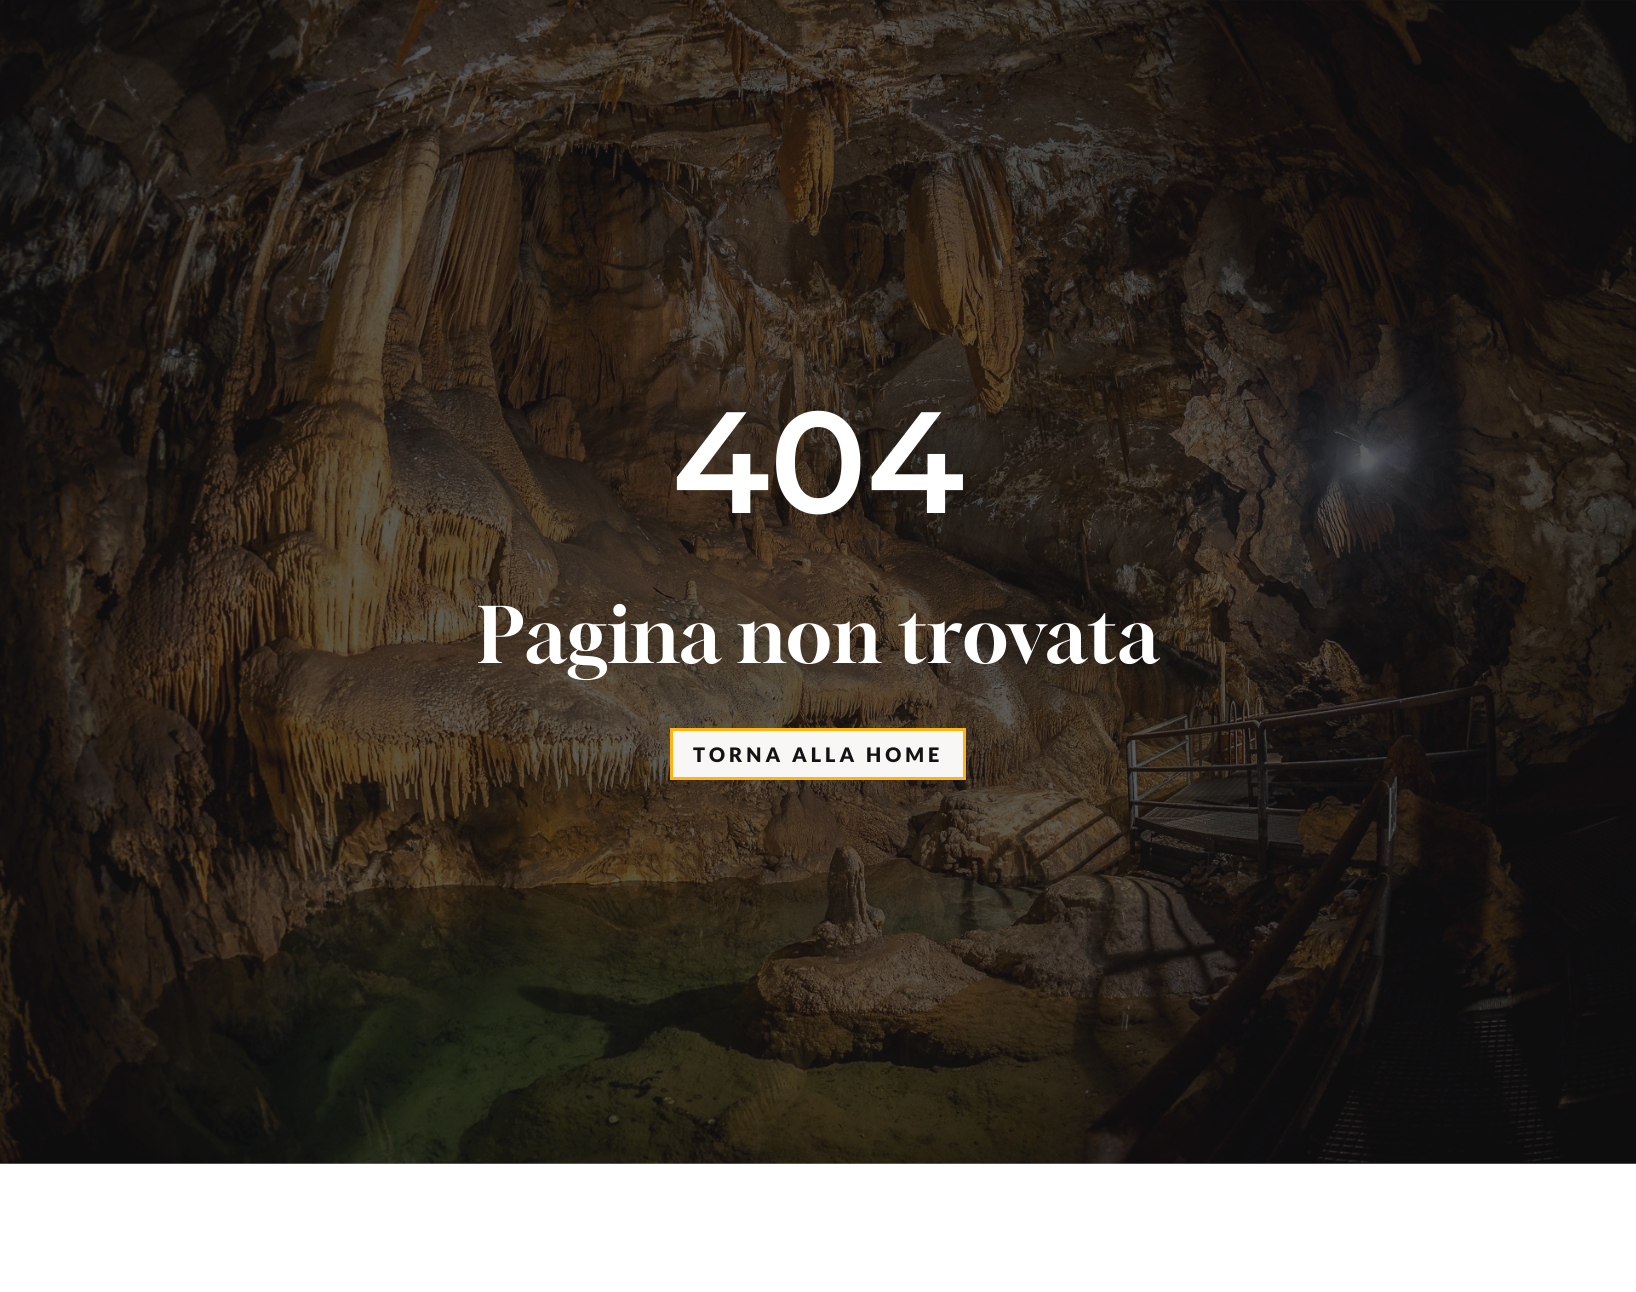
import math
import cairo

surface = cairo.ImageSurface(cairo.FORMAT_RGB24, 1636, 1292)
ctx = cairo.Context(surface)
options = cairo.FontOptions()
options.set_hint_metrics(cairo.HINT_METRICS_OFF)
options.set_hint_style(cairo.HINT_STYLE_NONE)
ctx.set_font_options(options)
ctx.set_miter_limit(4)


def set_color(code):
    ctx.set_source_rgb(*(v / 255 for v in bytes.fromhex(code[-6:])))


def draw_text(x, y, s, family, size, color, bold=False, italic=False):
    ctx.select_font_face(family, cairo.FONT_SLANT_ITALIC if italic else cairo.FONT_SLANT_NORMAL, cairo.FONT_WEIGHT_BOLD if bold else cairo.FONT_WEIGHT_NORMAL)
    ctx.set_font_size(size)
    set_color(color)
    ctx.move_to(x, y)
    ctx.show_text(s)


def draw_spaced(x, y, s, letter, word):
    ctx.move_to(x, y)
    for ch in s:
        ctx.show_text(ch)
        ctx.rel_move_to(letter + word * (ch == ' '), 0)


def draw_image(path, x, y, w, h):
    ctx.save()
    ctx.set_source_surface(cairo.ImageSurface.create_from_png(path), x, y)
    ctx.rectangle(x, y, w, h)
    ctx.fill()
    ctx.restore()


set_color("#ffffff")
ctx.paint()
draw_image("assets/img1.png", 0, 0, 1636, 1164)
draw_text(672, 513, "404", "Montserrat SemiBold", 144, "#ffffff")
draw_text(478, 663, "Pagina non trovata", "Gloock", 76.25, "#ffffff")
set_color("#f8f7f5")
ctx.rectangle(671.5, 729.5, 293, 49)
ctx.fill_preserve()
set_color("#ffb40f")
ctx.set_line_width(3)
ctx.stroke()
ctx.select_font_face("Lato Black")
ctx.set_font_size(20)
set_color("#131315")
draw_spaced(693, 762, "TORNA ALLA HOME", 4, 0)
surface.write_to_png("output.png")
